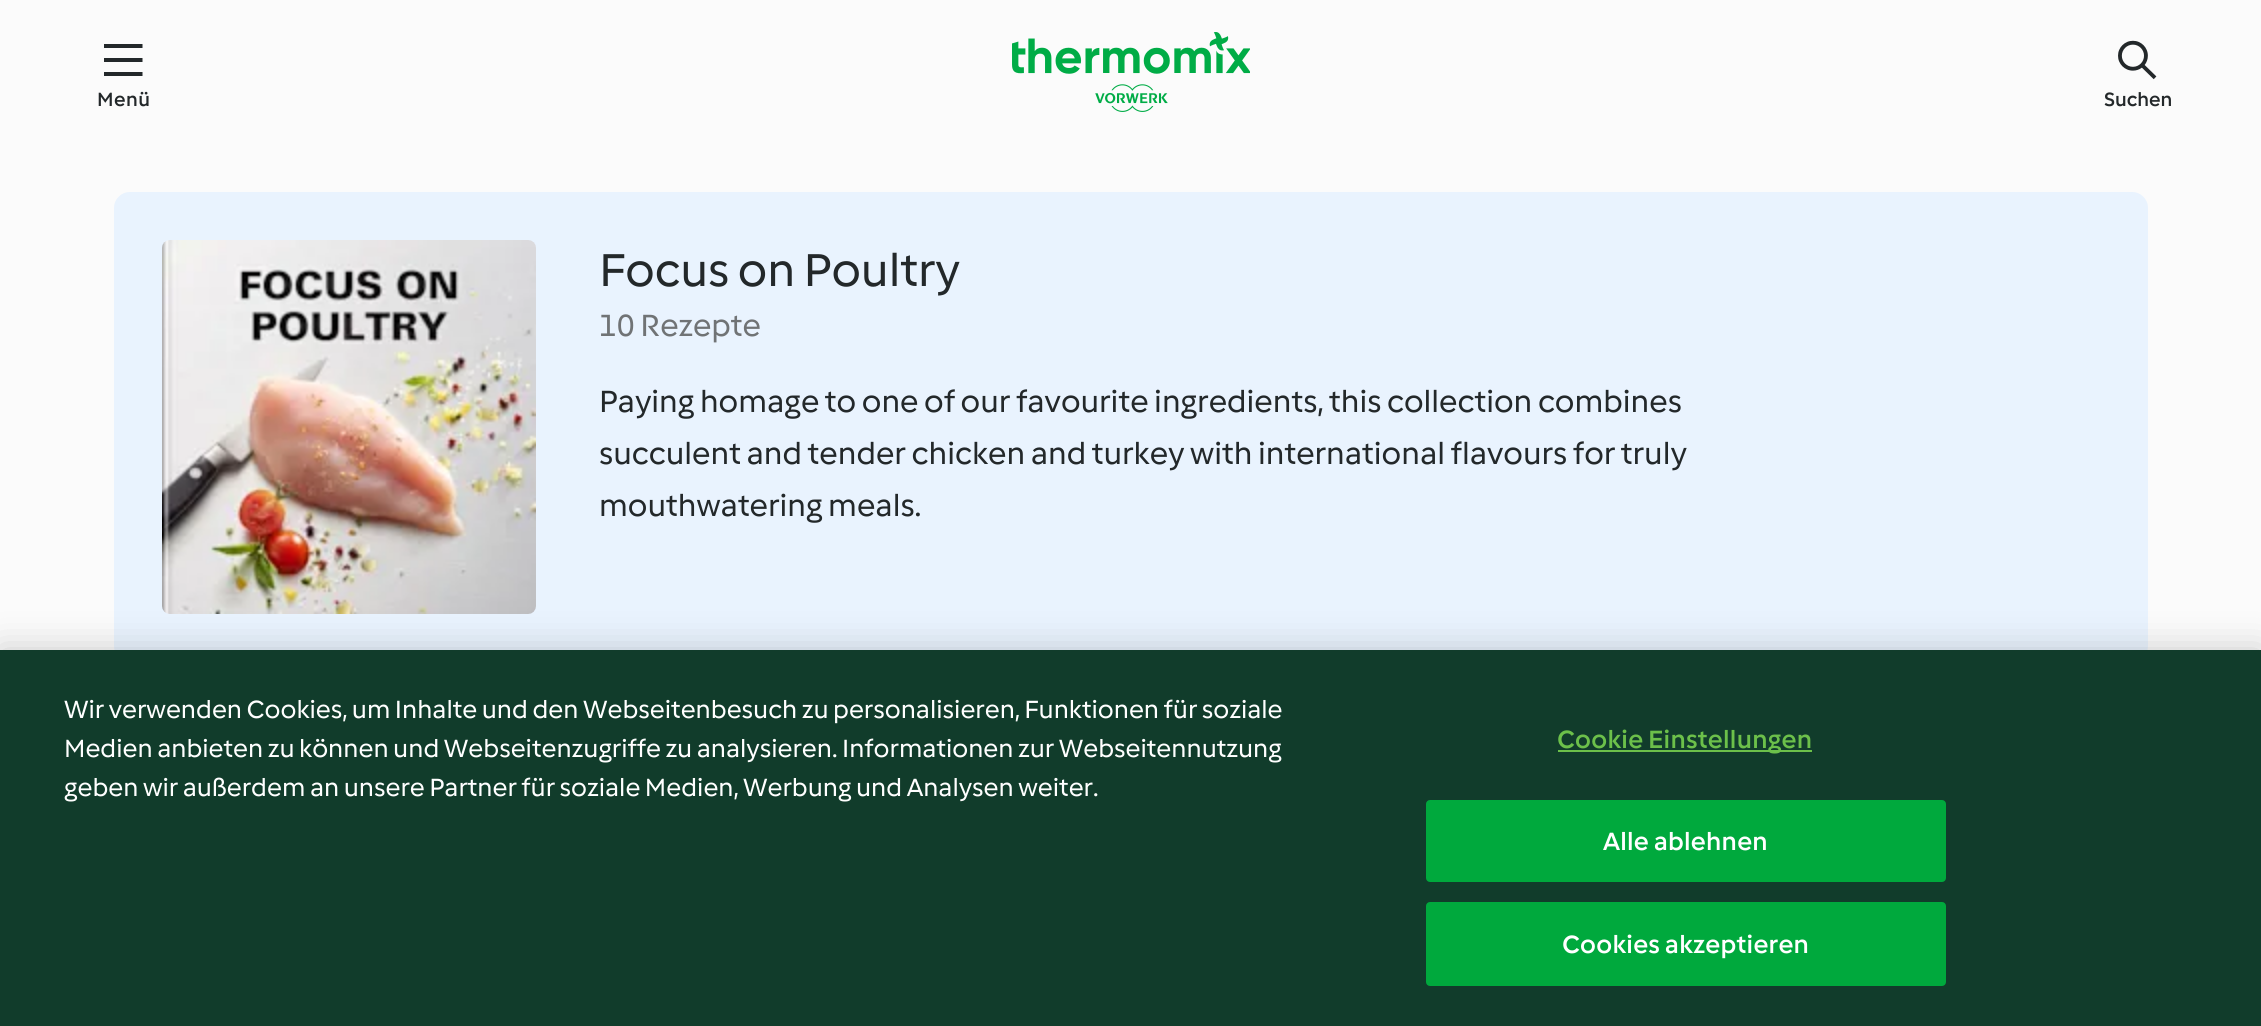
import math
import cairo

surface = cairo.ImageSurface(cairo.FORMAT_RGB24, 2261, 1026)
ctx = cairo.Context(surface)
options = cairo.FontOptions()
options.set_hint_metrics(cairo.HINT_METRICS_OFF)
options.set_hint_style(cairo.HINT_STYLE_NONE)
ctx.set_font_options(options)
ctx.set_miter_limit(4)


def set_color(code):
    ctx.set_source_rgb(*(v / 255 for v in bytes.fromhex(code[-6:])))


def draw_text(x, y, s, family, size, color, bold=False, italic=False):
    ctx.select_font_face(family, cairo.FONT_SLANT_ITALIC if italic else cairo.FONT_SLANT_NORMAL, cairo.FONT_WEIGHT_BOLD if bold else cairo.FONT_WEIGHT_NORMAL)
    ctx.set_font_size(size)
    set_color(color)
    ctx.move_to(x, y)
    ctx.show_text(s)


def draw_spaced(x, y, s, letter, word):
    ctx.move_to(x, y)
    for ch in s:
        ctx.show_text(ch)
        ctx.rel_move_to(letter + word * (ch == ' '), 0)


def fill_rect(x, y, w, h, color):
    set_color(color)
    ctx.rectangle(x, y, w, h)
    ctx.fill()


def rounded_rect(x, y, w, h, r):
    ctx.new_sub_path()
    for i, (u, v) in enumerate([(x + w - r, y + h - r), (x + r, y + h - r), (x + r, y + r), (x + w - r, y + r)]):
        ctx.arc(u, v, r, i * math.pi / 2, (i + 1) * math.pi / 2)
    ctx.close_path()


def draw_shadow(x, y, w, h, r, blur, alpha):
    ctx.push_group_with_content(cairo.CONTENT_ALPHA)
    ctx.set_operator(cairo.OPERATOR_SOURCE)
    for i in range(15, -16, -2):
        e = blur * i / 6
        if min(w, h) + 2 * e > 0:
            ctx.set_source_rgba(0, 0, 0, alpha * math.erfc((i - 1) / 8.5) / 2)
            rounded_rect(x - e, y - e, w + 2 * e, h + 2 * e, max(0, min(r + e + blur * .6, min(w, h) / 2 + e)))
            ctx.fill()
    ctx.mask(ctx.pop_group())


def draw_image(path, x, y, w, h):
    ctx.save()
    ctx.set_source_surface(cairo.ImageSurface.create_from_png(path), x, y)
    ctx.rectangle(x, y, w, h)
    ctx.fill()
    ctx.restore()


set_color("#fbfbfb")
ctx.paint()
set_color("#23282a")
ctx.new_path()
ctx.move_to(104, 44)
ctx.line_to(142.5, 44)
ctx.line_to(142.5, 48)
ctx.line_to(104, 48)
ctx.close_path()
ctx.move_to(104, 58)
ctx.line_to(142.5, 58)
ctx.line_to(142.5, 62)
ctx.line_to(104, 62)
ctx.close_path()
ctx.move_to(104, 72)
ctx.line_to(142.5, 72)
ctx.line_to(142.5, 76)
ctx.line_to(104, 76)
ctx.close_path()
ctx.fill()
ctx.select_font_face("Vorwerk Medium")
ctx.set_font_size(20)
draw_spaced(97, 106, "Menü", 0.5, 0)
draw_image("assets/img1.png", 1012, 32, 238, 80)
draw_image("assets/img2.png", 2118, 40, 39, 40)
draw_text(2104, 106, "Suchen", "Vorwerk Medium", 20, "#23282a")
set_color("#e9f3fe")
rounded_rect(114, 192, 2034, 470, 16)
ctx.fill()
draw_image("assets/img3.png", 162, 240, 374, 374)
draw_text(599, 286, "Focus on Poultry", "Vorwerk", 48, "#23282a")
draw_text(599, 336, "10 Rezepte", "Vorwerk", 32, "#707375")
draw_text(599, 412, "Paying homage to one of our favourite ingredients, this collection combines", "Vorwerk", 32, "#23282a")
draw_text(599, 464, "succulent and tender chicken and turkey with international flavours for truly", "Vorwerk", 32, "#23282a")
draw_text(599, 516, "mouthwatering meals.", "Vorwerk", 32, "#23282a")
set_color("#000000")
draw_shadow(0, 650, 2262, 376, 0, 18, 0.2)
fill_rect(0, 650, 2261, 376, "#113c2b")
draw_text(64, 718, "Wir verwenden Cookies, um Inhalte und den Webseitenbesuch zu personalisieren, Funktionen für soziale", "Vorwerk", 26, "#ffffff")
draw_text(64, 757, "Medien anbieten zu können und Webseitenzugriffe zu analysieren. Informationen zur Webseitennutzung", "Vorwerk", 26, "#ffffff")
draw_text(64, 796, "geben wir außerdem an unsere Partner für soziale Medien, Werbung und Analysen weiter.", "Vorwerk", 26, "#ffffff")
fill_rect(1558, 750, 254, 2, "#6cc04a")
ctx.select_font_face("Vorwerk Medium")
draw_spaced(1557, 748, "Cookie Einstellungen", 0.25, 0)
set_color("#00a93d")
rounded_rect(1427, 801, 518, 80, 3)
ctx.fill_preserve()
ctx.stroke()
set_color("#ffffff")
draw_spaced(1603, 850, "Alle ablehnen", 0.25, 0)
set_color("#00a93d")
rounded_rect(1427, 903, 518, 82, 3)
ctx.fill_preserve()
ctx.stroke()
set_color("#ffffff")
draw_spaced(1562, 953, "Cookies akzeptieren", 0.25, 0)
surface.write_to_png("output.png")
